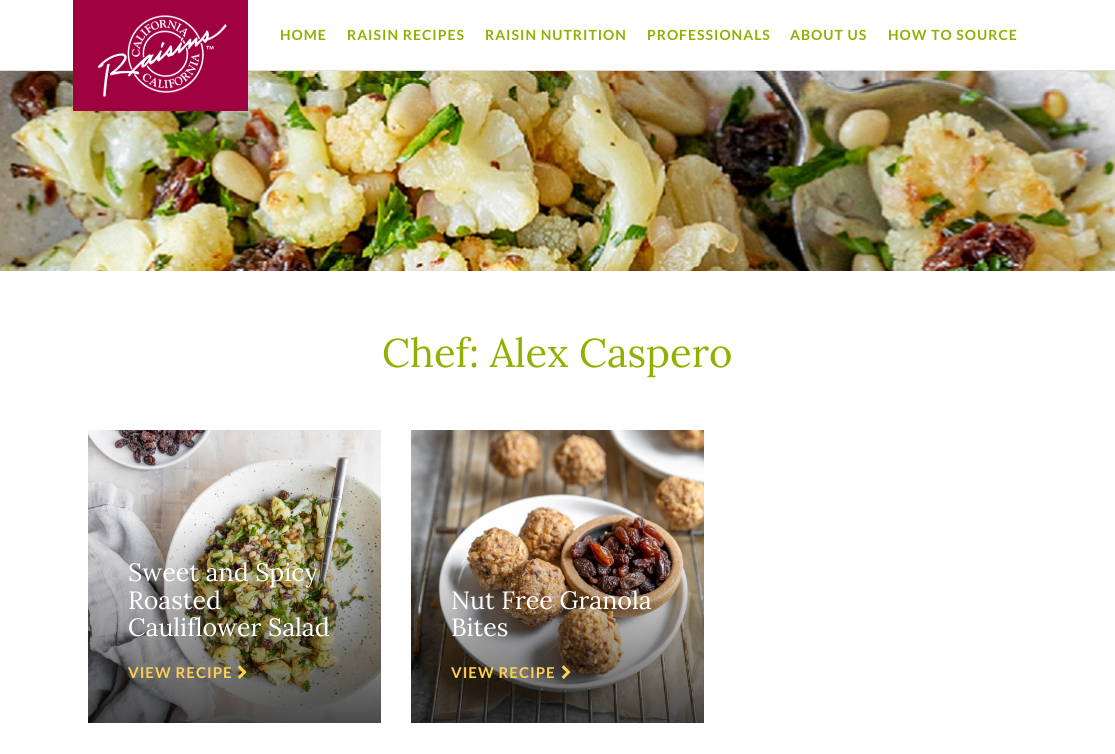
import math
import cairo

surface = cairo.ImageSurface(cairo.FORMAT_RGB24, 1115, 754)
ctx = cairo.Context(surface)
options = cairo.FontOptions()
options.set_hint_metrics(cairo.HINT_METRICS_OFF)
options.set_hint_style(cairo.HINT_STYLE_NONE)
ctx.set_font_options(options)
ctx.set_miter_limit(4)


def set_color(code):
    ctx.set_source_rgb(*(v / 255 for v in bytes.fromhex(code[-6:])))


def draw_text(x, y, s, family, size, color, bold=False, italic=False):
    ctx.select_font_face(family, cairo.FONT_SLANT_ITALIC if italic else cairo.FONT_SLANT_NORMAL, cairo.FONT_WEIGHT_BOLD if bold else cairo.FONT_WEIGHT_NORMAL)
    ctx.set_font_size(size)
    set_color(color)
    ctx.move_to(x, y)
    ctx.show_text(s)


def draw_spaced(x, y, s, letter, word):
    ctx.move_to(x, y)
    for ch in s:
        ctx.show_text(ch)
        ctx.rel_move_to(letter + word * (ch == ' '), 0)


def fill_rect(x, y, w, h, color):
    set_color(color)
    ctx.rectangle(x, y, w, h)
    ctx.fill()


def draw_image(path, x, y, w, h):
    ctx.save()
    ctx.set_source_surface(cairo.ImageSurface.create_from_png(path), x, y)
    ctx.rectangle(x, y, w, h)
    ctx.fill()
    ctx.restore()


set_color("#ffffff")
ctx.paint()
fill_rect(0, 70, 1115, 1, "#dfdfe1")
draw_image("assets/img2.png", 0, 71, 1115, 200)
fill_rect(73, 0, 175, 111, "#9f0040")
draw_image("assets/img1.png", 97, 15, 130, 82)
ctx.select_font_face("Lato", cairo.FONT_SLANT_NORMAL, cairo.FONT_WEIGHT_BOLD)
ctx.set_font_size(14)
set_color("#8fb100")
draw_spaced(280, 40, "HOME", 1, 0)
draw_spaced(347, 40, "RAISIN RECIPES", 1, 0)
draw_spaced(485, 40, "RAISIN NUTRITION", 1, 0)
draw_spaced(647, 40, "PROFESSIONALS", 1, 0)
draw_spaced(790, 40, "ABOUT US", 1, 0)
draw_spaced(888, 40, "HOW TO SOURCE", 1, 0)
draw_text(382, 367, "Chef: Alex Caspero", "Lora", 40, "#8fb100")
draw_image("assets/img3.png", 88, 430, 293, 293)
draw_text(128, 581, "Sweet and Spicy", "Lora", 25, "#ffffff")
draw_text(128, 609, "Roasted", "Lora", 25, "#ffffff")
draw_text(128, 636, "Cauliflower Salad", "Lora", 25, "#ffffff")
ctx.select_font_face("Lato", cairo.FONT_SLANT_NORMAL, cairo.FONT_WEIGHT_BOLD)
ctx.set_font_size(15)
set_color("#ffcf4f")
draw_spaced(128, 678, "VIEW RECIPE", 1, 0)
draw_image("assets/img4.png", 237, 665, 10, 14)
draw_image("assets/img5.png", 411, 430, 293, 293)
draw_text(451, 609, "Nut Free Granola", "Lora", 25, "#ffffff")
draw_text(451, 636, "Bites", "Lora", 25, "#ffffff")
ctx.select_font_face("Lato", cairo.FONT_SLANT_NORMAL, cairo.FONT_WEIGHT_BOLD)
ctx.set_font_size(15)
set_color("#ffcf4f")
draw_spaced(451, 678, "VIEW RECIPE", 1, 0)
draw_image("assets/img6.png", 561, 665, 10, 14)
surface.write_to_png("output.png")
